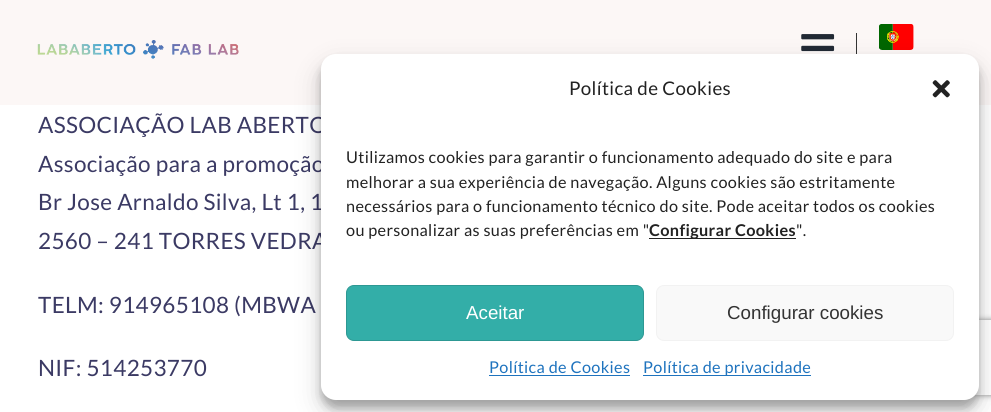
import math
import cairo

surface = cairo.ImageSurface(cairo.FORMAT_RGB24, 991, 412)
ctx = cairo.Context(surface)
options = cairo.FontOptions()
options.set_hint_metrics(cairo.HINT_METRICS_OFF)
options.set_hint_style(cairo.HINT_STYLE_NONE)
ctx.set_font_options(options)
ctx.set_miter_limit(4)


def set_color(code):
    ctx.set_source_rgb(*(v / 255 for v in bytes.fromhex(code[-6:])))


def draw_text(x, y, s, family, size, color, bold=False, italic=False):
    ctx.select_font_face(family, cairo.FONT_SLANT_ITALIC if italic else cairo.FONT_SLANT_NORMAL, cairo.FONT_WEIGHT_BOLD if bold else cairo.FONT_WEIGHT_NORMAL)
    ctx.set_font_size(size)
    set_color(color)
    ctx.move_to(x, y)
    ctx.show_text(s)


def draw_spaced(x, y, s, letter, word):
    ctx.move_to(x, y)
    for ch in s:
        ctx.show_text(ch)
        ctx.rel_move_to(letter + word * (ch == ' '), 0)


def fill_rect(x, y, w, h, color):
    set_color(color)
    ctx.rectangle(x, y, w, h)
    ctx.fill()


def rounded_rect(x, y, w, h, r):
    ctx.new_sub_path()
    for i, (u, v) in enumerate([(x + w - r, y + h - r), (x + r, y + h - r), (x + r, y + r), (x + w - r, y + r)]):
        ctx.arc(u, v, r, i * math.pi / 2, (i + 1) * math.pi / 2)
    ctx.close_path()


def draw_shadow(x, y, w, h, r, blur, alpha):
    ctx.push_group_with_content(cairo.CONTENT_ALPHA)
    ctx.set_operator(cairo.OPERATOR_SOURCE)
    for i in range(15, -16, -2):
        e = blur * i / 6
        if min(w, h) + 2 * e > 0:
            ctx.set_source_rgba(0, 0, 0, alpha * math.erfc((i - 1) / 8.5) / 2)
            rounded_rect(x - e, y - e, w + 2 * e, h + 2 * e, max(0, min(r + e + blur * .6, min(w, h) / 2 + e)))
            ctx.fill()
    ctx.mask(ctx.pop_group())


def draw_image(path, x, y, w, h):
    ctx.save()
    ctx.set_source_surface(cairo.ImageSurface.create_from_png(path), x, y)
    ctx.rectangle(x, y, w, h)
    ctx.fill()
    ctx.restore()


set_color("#ffffff")
ctx.paint()
fill_rect(0, 0, 991, 105, "#fcf7f6")
draw_image("assets/img1.png", 37, 40, 202, 19)
draw_image("assets/img2.png", 801, 34, 34, 18)
fill_rect(856, 33, 1, 21, "#333333")
draw_image("assets/img3.png", 879, 24, 35, 26)
ctx.select_font_face("Lato")
ctx.set_font_size(22.5)
set_color("#3b3a64")
draw_spaced(38, 133, "ASSOCIAÇÃO LAB ABERTO", 0.35, 0)
draw_spaced(38, 172, "Associação para a promoção", 0.35, 0)
draw_spaced(38, 210, "Br Jose Arnaldo Silva, Lt 1, 1", 0.35, 0)
draw_spaced(38, 249, "2560 – 241 TORRES VEDRA", 0.35, 0)
draw_spaced(38, 313, "TELM: 914965108 (MBWA", 0.35, 0)
draw_spaced(38, 376, "NIF: 514253770", 0.35, 0)
set_color("#000000")
draw_shadow(321, 61, 658, 347, 15, 4, 0.23)
draw_shadow(321, 66, 658, 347, 15, 12.5, 0.19)
ctx.save()
ctx.set_fill_rule(cairo.FILL_RULE_EVEN_ODD)
ctx.new_path()
ctx.move_to(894, 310)
ctx.line_to(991, 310)
ctx.line_to(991, 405)
ctx.line_to(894, 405)
ctx.close_path()
ctx.move_to(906.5, 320)
ctx.line_to(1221.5, 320)
ctx.curve_to(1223, 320, 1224, 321, 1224, 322.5)
ctx.line_to(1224, 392.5)
ctx.curve_to(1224, 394, 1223, 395, 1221.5, 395)
ctx.line_to(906.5, 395)
ctx.curve_to(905, 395, 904, 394, 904, 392.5)
ctx.line_to(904, 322.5)
ctx.curve_to(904, 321, 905, 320, 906.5, 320)
ctx.close_path()
ctx.clip()
set_color("#808080")
draw_shadow(904, 320, 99, 75, 2.5, 3, 1)
ctx.restore()
set_color("#ffffff")
rounded_rect(321, 54, 658, 346, 15)
ctx.fill()
ctx.set_font_size(18.75)
set_color("#222222")
draw_spaced(569, 95, "Política de Cookies", 0.35, 0)
draw_image("assets/img4.png", 932, 80, 18, 18)
ctx.set_font_size(16.25)
draw_spaced(346, 163, "Utilizamos cookies para garantir o funcionamento adequado do site e para", 0.35, 0)
draw_spaced(346, 188, "melhorar a sua experiência de navegação. Alguns cookies são estritamente", 0.35, 0)
draw_spaced(346, 212, "necessários para o funcionamento técnico do site. Pode aceitar todos os cookies", 0.35, 0)
draw_spaced(346, 236, "ou personalizar as suas preferências em \"", 0.35, 0)
fill_rect(649, 238, 147, 1, "#222222")
ctx.select_font_face("Lato", cairo.FONT_SLANT_NORMAL, cairo.FONT_WEIGHT_BOLD)
draw_spaced(649, 236, "Configurar Cookies", 0.35, 0)
ctx.select_font_face("Lato")
draw_spaced(796, 236, "\".", 0.35, 0)
set_color("#33aea8")
rounded_rect(346.5, 285.5, 297, 55, 7.5)
ctx.fill_preserve()
set_color("#2d9893")
ctx.set_line_width(1)
ctx.stroke()
draw_text(466, 319, "Aceitar", "Liberation Sans", 18.75, "#ffffff")
set_color("#f9f9f9")
rounded_rect(656.5, 285.5, 297, 55, 7.5)
ctx.fill_preserve()
set_color("#f2f2f2")
ctx.stroke()
draw_text(727, 319, "Configurar cookies", "Liberation Sans", 18.75, "#333333")
ctx.select_font_face("Lato")
ctx.set_font_size(16.25)
set_color("#1e73be")
draw_spaced(489, 373, "Política de Cookies", 0.35, 0)
fill_rect(489, 375, 141, 1, "#1e73be")
fill_rect(643, 375, 168, 1, "#1e73be")
draw_spaced(643, 373, "Política de privacidade", 0.35, 0)
surface.write_to_png("output.png")
